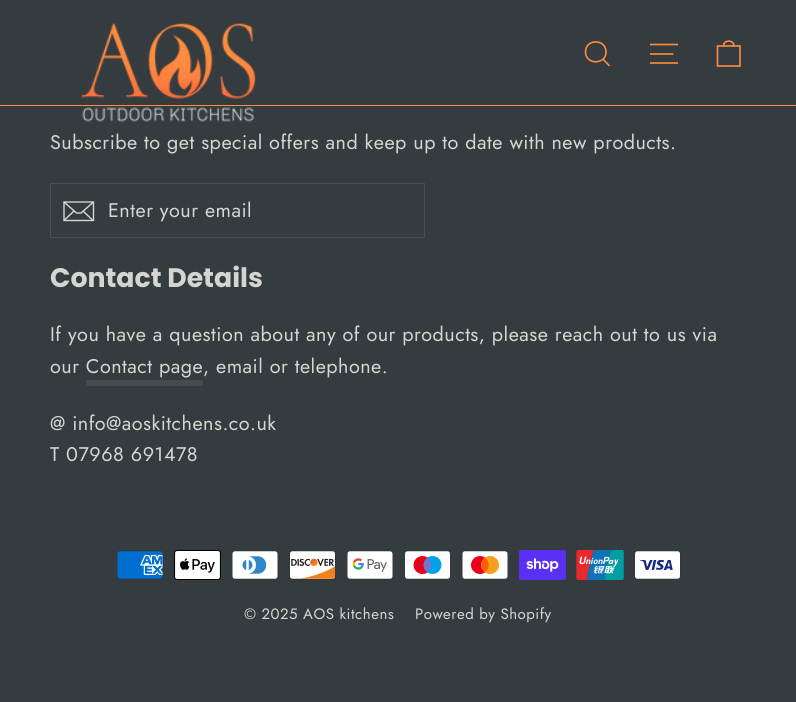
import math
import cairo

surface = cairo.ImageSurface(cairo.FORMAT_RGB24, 796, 702)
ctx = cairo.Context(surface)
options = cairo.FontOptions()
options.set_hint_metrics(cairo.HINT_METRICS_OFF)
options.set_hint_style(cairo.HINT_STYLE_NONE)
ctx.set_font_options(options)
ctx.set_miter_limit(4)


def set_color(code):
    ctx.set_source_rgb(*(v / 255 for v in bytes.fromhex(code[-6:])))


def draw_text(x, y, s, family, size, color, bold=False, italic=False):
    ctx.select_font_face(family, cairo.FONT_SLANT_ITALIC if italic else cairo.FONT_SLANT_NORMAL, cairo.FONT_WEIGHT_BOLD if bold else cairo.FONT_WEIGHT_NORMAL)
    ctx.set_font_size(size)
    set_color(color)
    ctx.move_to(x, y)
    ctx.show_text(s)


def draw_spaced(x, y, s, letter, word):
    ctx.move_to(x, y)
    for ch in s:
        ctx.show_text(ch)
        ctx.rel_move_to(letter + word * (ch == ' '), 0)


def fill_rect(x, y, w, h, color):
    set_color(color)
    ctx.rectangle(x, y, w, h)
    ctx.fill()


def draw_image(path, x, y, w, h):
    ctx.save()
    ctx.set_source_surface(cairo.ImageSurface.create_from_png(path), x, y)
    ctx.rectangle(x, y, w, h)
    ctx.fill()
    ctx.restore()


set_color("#353c3f")
ctx.paint()
fill_rect(0, 105, 796, 1, "#ff8d3f")
draw_image("assets/img1.png", 81, 23, 175, 99)
ctx.new_path()
ctx.move_to(606, 52)
ctx.curve_to(606, 65, 585.5, 65, 585.5, 52)
ctx.curve_to(585.5, 38.5, 606, 38.5, 606, 52)
ctx.close_path()
ctx.move_to(609.5, 66)
ctx.line_to(603, 59)
ctx.set_line_width(1.6)
ctx.stroke()
ctx.new_path()
ctx.move_to(650, 44.5)
ctx.line_to(678, 44.5)
ctx.move_to(650, 54)
ctx.line_to(673.5, 54)
ctx.move_to(650, 63)
ctx.line_to(678, 63)
ctx.stroke()
ctx.new_path()
ctx.move_to(717.5, 46)
ctx.line_to(740, 46)
ctx.line_to(740, 66)
ctx.line_to(717.5, 66)
ctx.close_path()
ctx.move_to(723.5, 46)
ctx.curve_to(723.5, 39.5, 734, 39.5, 734, 46)
ctx.stroke()
ctx.select_font_face("Jost")
ctx.set_font_size(19.75)
set_color("#d5d6d2")
draw_spaced(50, 149, "Subscribe to get special offers and keep up to date with new products.", 0.5, 0)
ctx.rectangle(50.5, 183.5, 374, 54)
set_color("#484e51")
ctx.set_line_width(1)
ctx.stroke()
ctx.new_path()
ctx.move_to(93.5, 220.5)
ctx.line_to(64, 220.5)
ctx.line_to(64, 202)
ctx.line_to(93.5, 202)
ctx.close_path()
ctx.move_to(64, 202)
ctx.line_to(76.5, 213)
ctx.line_to(81, 213)
ctx.line_to(93.5, 202)
ctx.move_to(74, 211)
ctx.line_to(64.5, 220)
ctx.move_to(93, 220.5)
ctx.line_to(83, 211)
set_color("#d5d6d2")
ctx.set_line_width(1.4)
ctx.stroke()
draw_spaced(108, 217, "Enter your email", 0.5, 0)
draw_text(50, 287, "Contact Details", "Poppins", 26.75, "#d5d6d2", bold=True)
ctx.select_font_face("Jost")
ctx.set_font_size(19.75)
draw_spaced(50, 341, "If you have a question about any of our products, please reach out to us via", 0.5, 0)
draw_spaced(50, 373, "our Contact page", 0.5, 0)
draw_spaced(203, 373, ", email or telephone.", 0.5, 0)
fill_rect(86, 380, 117, 6, "#454b4e")
set_color("#d5d6d2")
draw_spaced(50, 430, "@ info@aoskitchens.co.uk", 0.5, 0)
draw_spaced(50, 461, "T 07968 691478", 0.5, 0)
draw_image("assets/img2.png", 117, 550, 46, 30)
draw_image("assets/img3.png", 174, 550, 47, 30)
draw_image("assets/img4.png", 232, 550, 46, 30)
draw_image("assets/img5.png", 289, 550, 47, 30)
draw_image("assets/img6.png", 347, 550, 46, 30)
draw_image("assets/img7.png", 404, 550, 47, 30)
draw_image("assets/img8.png", 462, 550, 46, 30)
draw_image("assets/img9.png", 519, 550, 47, 30)
draw_image("assets/img10.png", 576, 550, 48, 30)
draw_image("assets/img11.png", 634, 550, 47, 30)
ctx.set_font_size(15)
draw_spaced(244, 619, "© 2025 AOS kitchens", 0.5, 0)
draw_spaced(415, 619, "Powered by Shopify", 0.5, 0)
surface.write_to_png("output.png")
